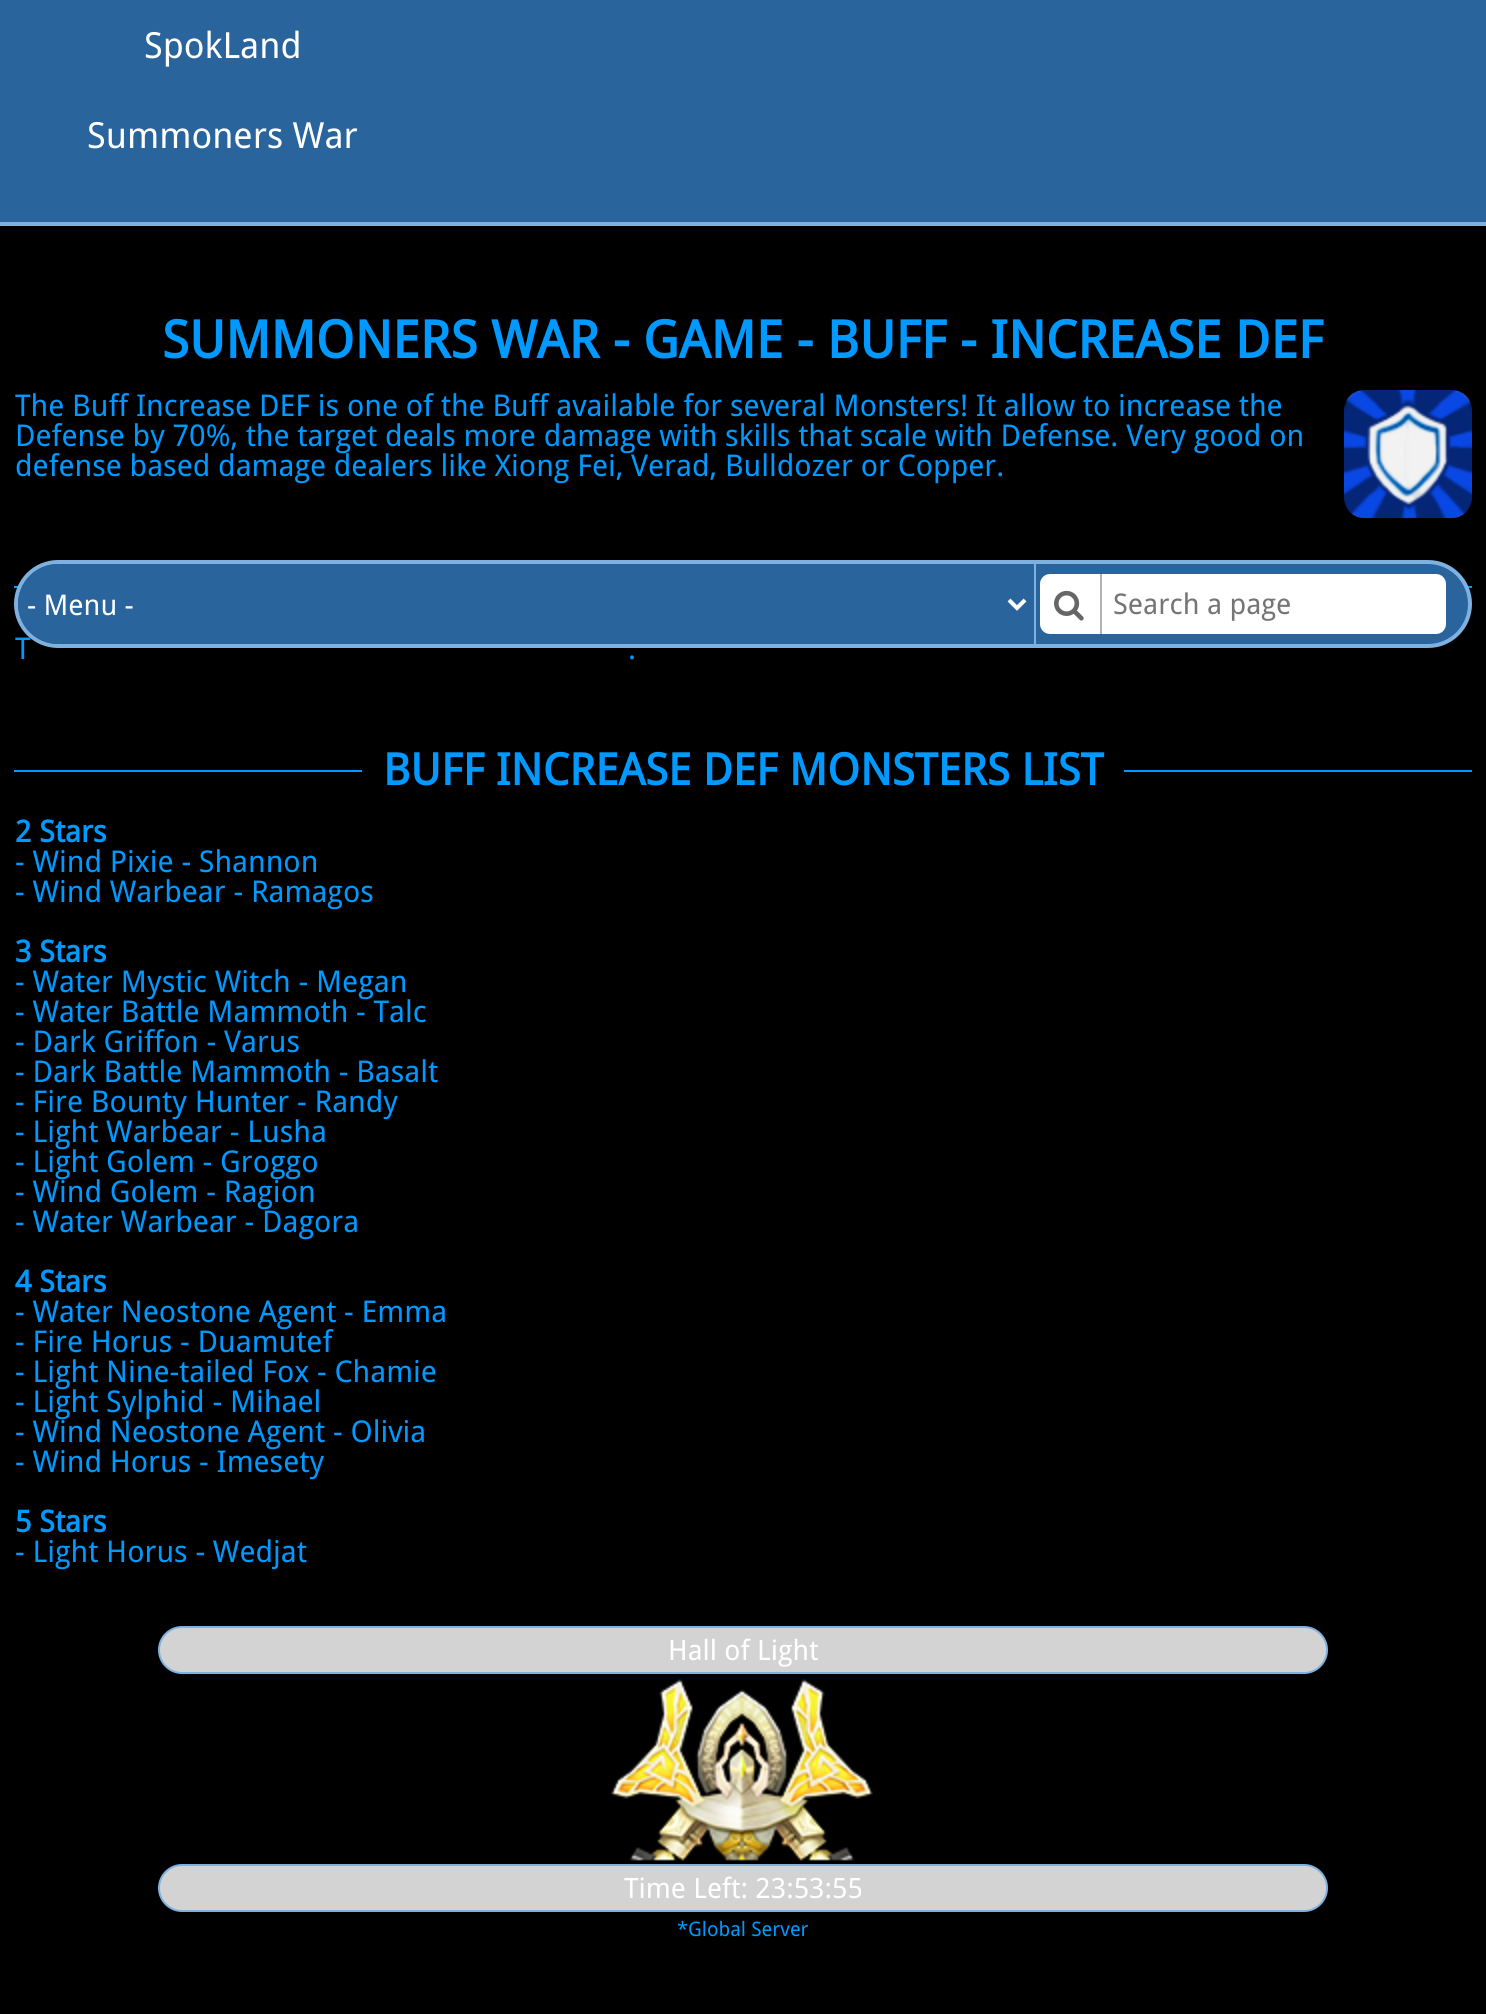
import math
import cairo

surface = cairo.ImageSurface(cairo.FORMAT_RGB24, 1486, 2014)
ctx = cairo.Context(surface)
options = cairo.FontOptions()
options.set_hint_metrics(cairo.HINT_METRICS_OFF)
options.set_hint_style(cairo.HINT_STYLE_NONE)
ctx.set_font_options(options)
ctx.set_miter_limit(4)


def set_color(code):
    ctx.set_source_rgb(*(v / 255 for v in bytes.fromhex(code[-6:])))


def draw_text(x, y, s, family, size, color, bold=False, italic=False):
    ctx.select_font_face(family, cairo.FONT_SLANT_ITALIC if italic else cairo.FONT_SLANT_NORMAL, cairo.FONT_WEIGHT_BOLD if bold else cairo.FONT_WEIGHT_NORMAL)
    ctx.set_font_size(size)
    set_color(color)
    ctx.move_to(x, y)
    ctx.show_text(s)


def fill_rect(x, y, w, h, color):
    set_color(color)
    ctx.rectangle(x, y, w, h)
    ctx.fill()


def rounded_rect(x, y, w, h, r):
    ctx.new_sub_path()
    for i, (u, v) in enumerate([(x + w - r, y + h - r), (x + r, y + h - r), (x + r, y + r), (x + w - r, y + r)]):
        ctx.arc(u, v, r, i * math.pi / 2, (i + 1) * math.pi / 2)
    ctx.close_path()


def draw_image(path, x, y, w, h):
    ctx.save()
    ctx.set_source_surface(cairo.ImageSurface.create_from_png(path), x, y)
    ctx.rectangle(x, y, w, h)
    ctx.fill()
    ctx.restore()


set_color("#000000")
ctx.paint()
fill_rect(0, 0, 1486, 222, "#29649c")
fill_rect(0, 222, 1486, 4, "#7fb1e0")
draw_text(144, 58, "SpokLand", "Droid Sans", 36, "#ffffff")
draw_text(87, 148, "Summoners War", "Droid Sans", 36, "#ffffff")
fill_rect(14, 586, 1458, 2, "#0099ff")
draw_text(15, 659, "T", "Droid Sans", 30, "#0099ff")
set_color("#29649c")
rounded_rect(16, 562, 1454, 84, 42)
ctx.fill_preserve()
set_color("#7fb1e0")
ctx.set_line_width(4)
ctx.stroke()
fill_rect(1034, 564, 2, 80, "#7fb1e0")
set_color("#29649c")
ctx.new_path()
ctx.move_to(58, 564)
ctx.line_to(1034, 564)
ctx.line_to(1034, 644)
ctx.line_to(58, 644)
ctx.curve_to(36, 644, 18, 626, 18, 604)
ctx.curve_to(18, 582, 36, 564, 58, 564)
ctx.close_path()
ctx.fill()
ctx.new_path()
ctx.move_to(1009, 600)
ctx.line_to(1017, 608)
ctx.line_to(1025, 600)
set_color("#ffffff")
ctx.stroke()
draw_text(27, 615, "- Menu -", "Droid Sans", 28.5, "#ffffff")
rounded_rect(1040, 574, 406, 60, 10)
ctx.fill()
fill_rect(1100, 574, 2, 60, "#b3b3b3")
draw_image("assets/img1.png", 1054, 590, 30, 31)
draw_text(1113, 614, "Search a page", "Droid Sans", 28.5, "#757575")
draw_text(162, 358, "SUMMONERS WAR - GAME - BUFF - INCREASE DEF", "Droid Sans", 52, "#0099ff", bold=True)
draw_text(15, 416, "The Buff Increase DEF is one of the Buff available for several Monsters! It allow to increase the", "Droid Sans", 30, "#0099ff")
draw_image("assets/img2.png", 1344, 390, 128, 128)
draw_text(15, 446, "Defense by 70%, the target deals more damage with skills that scale with Defense. Very good on", "Droid Sans", 30, "#0099ff")
draw_text(15, 476, "defense based damage dealers like Xiong Fei, Verad, Bulldozer or Copper.", "Droid Sans", 30, "#0099ff")
draw_text(628, 659, ".", "Droid Sans", 30, "#0099ff")
fill_rect(14, 770, 1458, 2, "#0099ff")
fill_rect(362, 770, 762, 2, "#000000")
draw_text(383, 785, "BUFF INCREASE DEF MONSTERS LIST", "Droid Sans", 44, "#0099ff", bold=True)
draw_text(15, 842, "2 Stars", "Droid Sans", 30, "#0099ff", bold=True)
draw_text(15, 872, "- Wind Pixie - Shannon", "Droid Sans", 30, "#0099ff")
draw_text(15, 902, "- Wind Warbear - Ramagos", "Droid Sans", 30, "#0099ff")
draw_text(15, 962, "3 Stars", "Droid Sans", 30, "#0099ff", bold=True)
draw_text(15, 992, "- Water Mystic Witch - Megan", "Droid Sans", 30, "#0099ff")
draw_text(15, 1022, "- Water Battle Mammoth - Talc", "Droid Sans", 30, "#0099ff")
draw_text(15, 1052, "- Dark Griffon - Varus", "Droid Sans", 30, "#0099ff")
draw_text(15, 1082, "- Dark Battle Mammoth - Basalt", "Droid Sans", 30, "#0099ff")
draw_text(15, 1112, "- Fire Bounty Hunter - Randy", "Droid Sans", 30, "#0099ff")
draw_text(15, 1142, "- Light Warbear - Lusha", "Droid Sans", 30, "#0099ff")
draw_text(15, 1172, "- Light Golem - Groggo", "Droid Sans", 30, "#0099ff")
draw_text(15, 1202, "- Wind Golem - Ragion", "Droid Sans", 30, "#0099ff")
draw_text(15, 1232, "- Water Warbear - Dagora", "Droid Sans", 30, "#0099ff")
draw_text(15, 1292, "4 Stars", "Droid Sans", 30, "#0099ff", bold=True)
draw_text(15, 1322, "- Water Neostone Agent - Emma", "Droid Sans", 30, "#0099ff")
draw_text(15, 1352, "- Fire Horus - Duamutef", "Droid Sans", 30, "#0099ff")
draw_text(15, 1382, "- Light Nine-tailed Fox - Chamie", "Droid Sans", 30, "#0099ff")
draw_text(15, 1412, "- Light Sylphid - Mihael", "Droid Sans", 30, "#0099ff")
draw_text(15, 1442, "- Wind Neostone Agent - Olivia", "Droid Sans", 30, "#0099ff")
draw_text(15, 1472, "- Wind Horus - Imesety", "Droid Sans", 30, "#0099ff")
draw_text(15, 1532, "5 Stars", "Droid Sans", 30, "#0099ff", bold=True)
draw_text(15, 1562, "- Light Horus - Wedjat", "Droid Sans", 30, "#0099ff")
set_color("#d3d3d3")
rounded_rect(159, 1627, 1168, 46, 23)
ctx.fill_preserve()
set_color("#7fb1e0")
ctx.set_line_width(2)
ctx.stroke()
draw_text(668, 1660, "Hall of Light", "Droid Sans", 28, "#ffffff")
draw_image("assets/img3.png", 611, 1679, 262, 182)
set_color("#d3d3d3")
rounded_rect(159, 1865, 1168, 46, 23)
ctx.fill_preserve()
set_color("#7fb1e0")
ctx.stroke()
draw_text(624, 1898, "Time Left: 23:53:55", "Droid Sans", 28, "#ffffff")
draw_text(677, 1936, "*Global Server", "Droid Sans", 20, "#0099ff")
surface.write_to_png("output.png")
